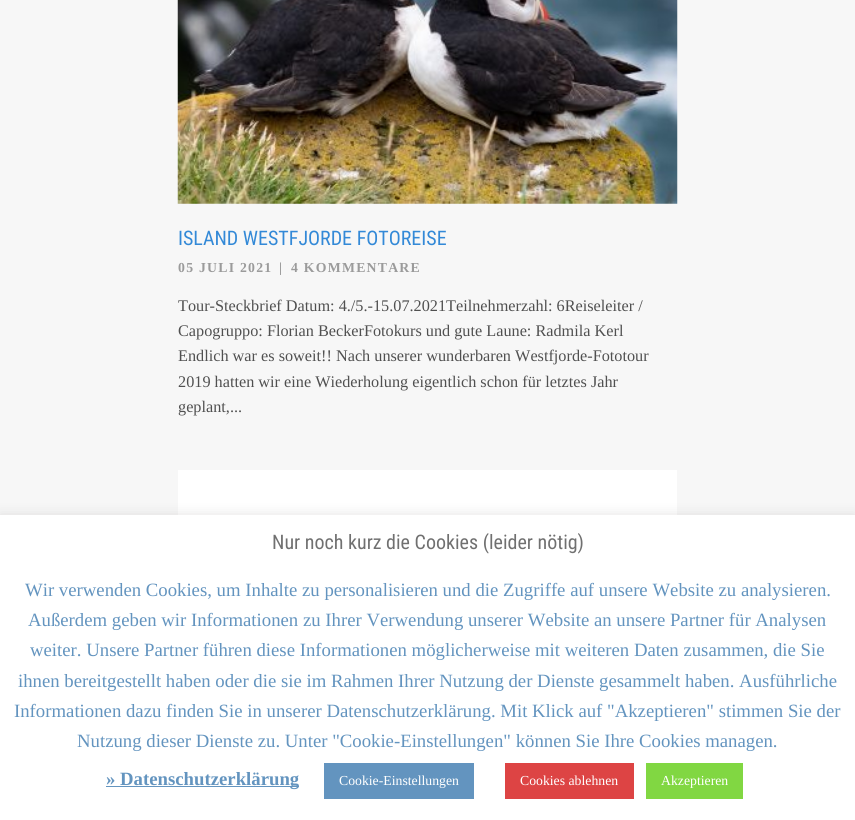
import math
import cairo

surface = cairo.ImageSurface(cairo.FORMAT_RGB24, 855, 820)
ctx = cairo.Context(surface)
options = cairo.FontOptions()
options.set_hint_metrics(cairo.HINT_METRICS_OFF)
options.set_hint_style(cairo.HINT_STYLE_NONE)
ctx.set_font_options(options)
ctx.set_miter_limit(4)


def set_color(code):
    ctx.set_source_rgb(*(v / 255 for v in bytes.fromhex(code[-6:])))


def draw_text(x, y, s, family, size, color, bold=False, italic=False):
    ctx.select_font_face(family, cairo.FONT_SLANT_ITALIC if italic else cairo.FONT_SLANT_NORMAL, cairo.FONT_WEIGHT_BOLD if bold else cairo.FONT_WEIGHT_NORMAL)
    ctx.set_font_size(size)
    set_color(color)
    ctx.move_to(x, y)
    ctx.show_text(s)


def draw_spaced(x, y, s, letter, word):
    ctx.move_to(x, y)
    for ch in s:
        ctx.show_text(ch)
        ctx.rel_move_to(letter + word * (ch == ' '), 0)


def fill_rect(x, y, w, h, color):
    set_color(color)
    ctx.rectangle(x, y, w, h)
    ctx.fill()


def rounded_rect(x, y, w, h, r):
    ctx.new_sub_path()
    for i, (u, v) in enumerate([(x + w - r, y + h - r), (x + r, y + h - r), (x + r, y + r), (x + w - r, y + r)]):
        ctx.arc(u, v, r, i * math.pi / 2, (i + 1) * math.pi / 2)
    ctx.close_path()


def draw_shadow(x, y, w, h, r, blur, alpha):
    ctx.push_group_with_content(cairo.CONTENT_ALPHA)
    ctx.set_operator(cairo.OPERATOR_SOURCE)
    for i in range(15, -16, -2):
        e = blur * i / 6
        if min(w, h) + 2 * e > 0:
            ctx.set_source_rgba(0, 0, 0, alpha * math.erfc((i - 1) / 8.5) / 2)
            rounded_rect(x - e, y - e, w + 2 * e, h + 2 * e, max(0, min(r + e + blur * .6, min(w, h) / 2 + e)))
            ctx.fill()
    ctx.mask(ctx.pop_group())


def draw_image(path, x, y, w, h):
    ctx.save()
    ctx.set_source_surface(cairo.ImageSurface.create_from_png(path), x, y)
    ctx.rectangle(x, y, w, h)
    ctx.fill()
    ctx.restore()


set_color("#f7f7f7")
ctx.paint()
draw_image("assets/img1.png", 177, 0, 501, 204)
draw_text(178, 245, "ISLAND WESTFJORDE FOTOREISE", "Roboto Condensed", 20, "#3389d7")
ctx.select_font_face("Liberation Serif", cairo.FONT_SLANT_NORMAL, cairo.FONT_WEIGHT_BOLD)
ctx.set_font_size(13.75)
set_color("#9b9b9b")
draw_spaced(178, 272, "05 JULI 2021", 1.25, 0)
draw_spaced(279, 272, "|", 1.25, 0)
draw_spaced(291, 272, "4 KOMMENTARE", 1.25, 0)
ctx.save()
ctx.rectangle(178, 0, 500, 420)
ctx.clip()
draw_text(178, 311, "Tour-Steckbrief Datum: 4./5.-15.07.2021Teilnehmerzahl: 6Reiseleiter /", "Liberation Serif", 16.25, "#505050")
ctx.restore()
draw_text(178, 336, "Capogruppo: Florian BeckerFotokurs und gute Laune: Radmila Kerl", "Liberation Serif", 16.25, "#505050")
draw_text(178, 361, "Endlich war es soweit!! Nach unserer wunderbaren Westfjorde-Fototour", "Liberation Serif", 16.25, "#505050")
draw_text(178, 387, "2019 hatten wir eine Wiederholung eigentlich schon für letztes Jahr", "Liberation Serif", 16.25, "#505050")
draw_text(178, 412, "geplant,...", "Liberation Serif", 16.25, "#505050")
draw_image("assets/img2.png", 178, 470, 499, 45)
set_color("#acabab")
draw_shadow(0, 514, 855, 305, 0, 6, 0.3)
fill_rect(0, 515, 855, 305, "#ffffff")
draw_text(272, 549, "Nur noch kurz die Cookies (leider nötig)", "Roboto Condensed", 20, "#707070")
draw_text(25, 596, "Wir verwenden Cookies, um Inhalte zu personalisieren und die Zugriffe auf unsere Website zu analysieren.", "Liberation Serif", 18.75, "#6394bf")
draw_text(28, 626, "Außerdem geben wir Informationen zu Ihrer Verwendung unserer Website an unsere Partner für Analysen", "Liberation Serif", 18.75, "#6394bf")
draw_text(30, 656, "weiter. Unsere Partner führen diese Informationen möglicherweise mit weiteren Daten zusammen, die Sie", "Liberation Serif", 18.75, "#6394bf")
draw_text(18, 687, "ihnen bereitgestellt haben oder die sie im Rahmen Ihrer Nutzung der Dienste gesammelt haben. Ausführliche", "Liberation Serif", 18.75, "#6394bf")
draw_text(14, 717, "Informationen dazu finden Sie in unserer Datenschutzerklärung. Mit Klick auf \"Akzeptieren\" stimmen Sie der", "Liberation Serif", 18.75, "#6394bf")
draw_text(77, 747, "Nutzung dieser Dienste zu. Unter \"Cookie-Einstellungen\" können Sie Ihre Cookies managen.", "Liberation Serif", 18.75, "#6394bf")
fill_rect(106, 786, 193, 1, "#6394bf")
draw_text(106, 785, "» Datenschutzerklärung", "Liberation Serif", 18.75, "#6394bf", bold=True)
fill_rect(324, 763, 150, 36, "#6394bf")
draw_text(339, 785, "Cookie-Einstellungen", "Liberation Serif", 13.75, "#ffffff")
fill_rect(505, 763, 129, 36, "#dd4444")
draw_text(520, 785, "Cookies ablehnen", "Liberation Serif", 13.75, "#ffffff")
fill_rect(646, 763, 97, 36, "#81d742")
draw_text(661, 785, "Akzeptieren", "Liberation Serif", 13.75, "#ffffff")
surface.write_to_png("output.png")
